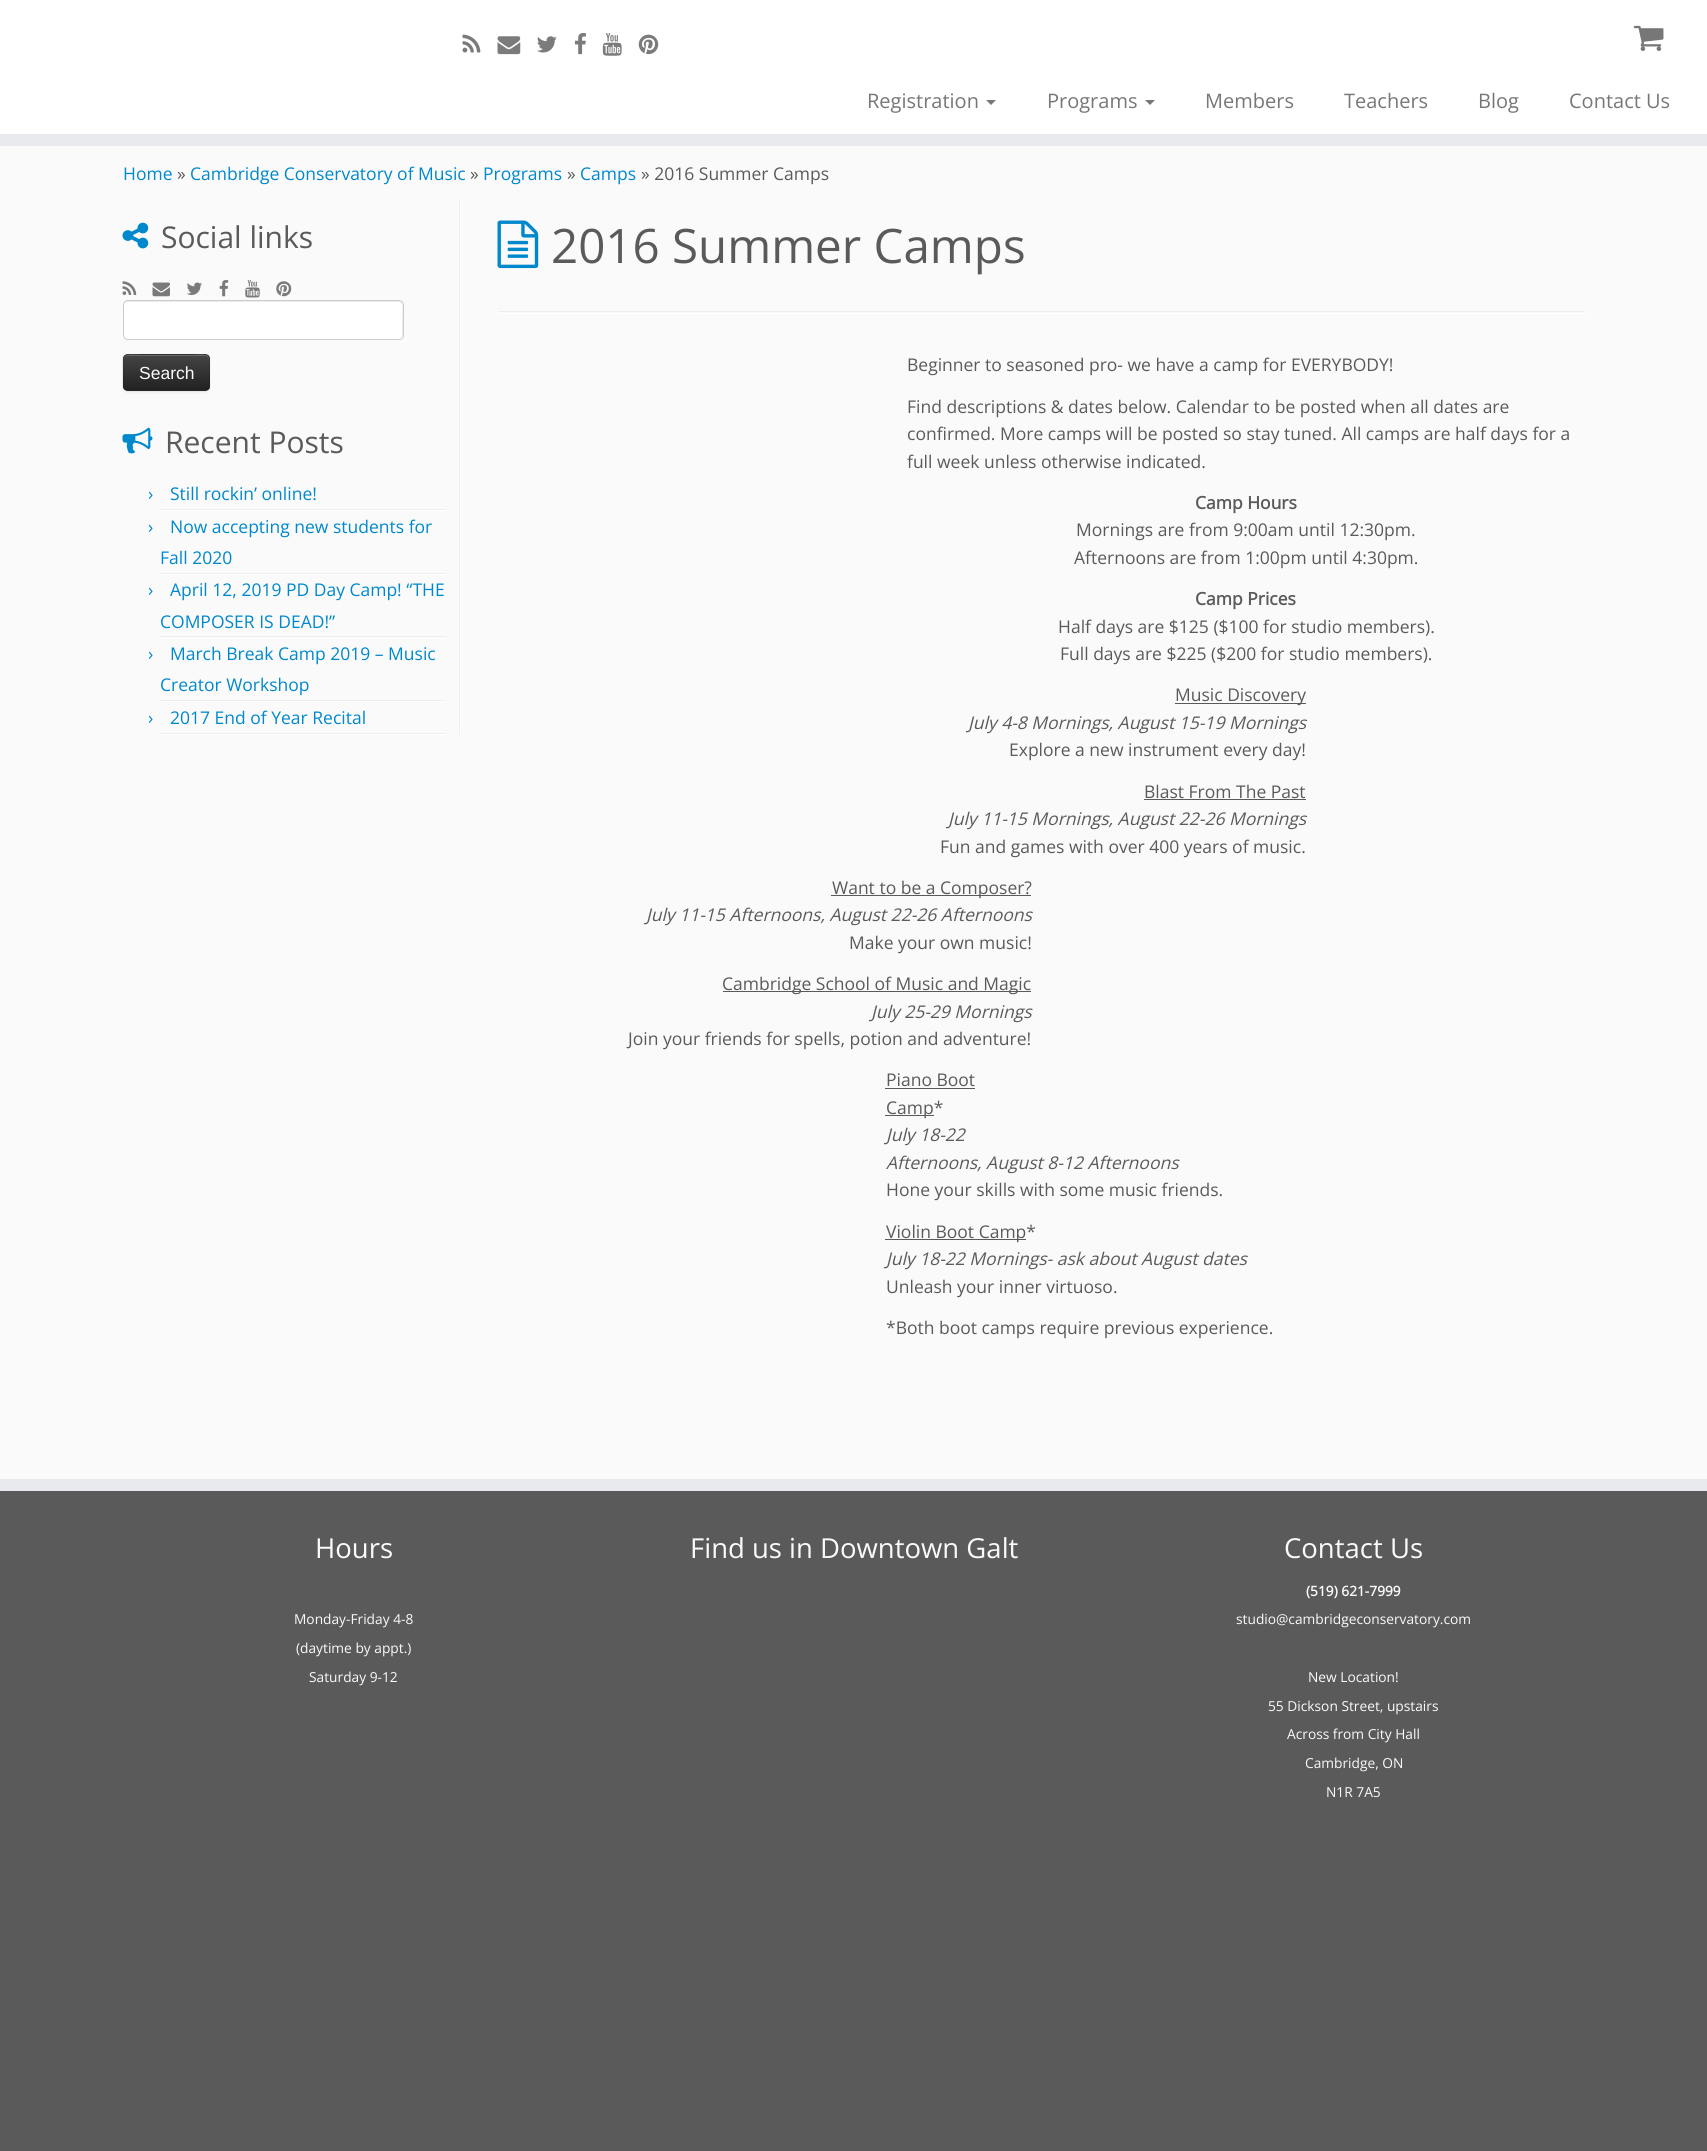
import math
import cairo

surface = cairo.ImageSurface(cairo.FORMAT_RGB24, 1707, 2151)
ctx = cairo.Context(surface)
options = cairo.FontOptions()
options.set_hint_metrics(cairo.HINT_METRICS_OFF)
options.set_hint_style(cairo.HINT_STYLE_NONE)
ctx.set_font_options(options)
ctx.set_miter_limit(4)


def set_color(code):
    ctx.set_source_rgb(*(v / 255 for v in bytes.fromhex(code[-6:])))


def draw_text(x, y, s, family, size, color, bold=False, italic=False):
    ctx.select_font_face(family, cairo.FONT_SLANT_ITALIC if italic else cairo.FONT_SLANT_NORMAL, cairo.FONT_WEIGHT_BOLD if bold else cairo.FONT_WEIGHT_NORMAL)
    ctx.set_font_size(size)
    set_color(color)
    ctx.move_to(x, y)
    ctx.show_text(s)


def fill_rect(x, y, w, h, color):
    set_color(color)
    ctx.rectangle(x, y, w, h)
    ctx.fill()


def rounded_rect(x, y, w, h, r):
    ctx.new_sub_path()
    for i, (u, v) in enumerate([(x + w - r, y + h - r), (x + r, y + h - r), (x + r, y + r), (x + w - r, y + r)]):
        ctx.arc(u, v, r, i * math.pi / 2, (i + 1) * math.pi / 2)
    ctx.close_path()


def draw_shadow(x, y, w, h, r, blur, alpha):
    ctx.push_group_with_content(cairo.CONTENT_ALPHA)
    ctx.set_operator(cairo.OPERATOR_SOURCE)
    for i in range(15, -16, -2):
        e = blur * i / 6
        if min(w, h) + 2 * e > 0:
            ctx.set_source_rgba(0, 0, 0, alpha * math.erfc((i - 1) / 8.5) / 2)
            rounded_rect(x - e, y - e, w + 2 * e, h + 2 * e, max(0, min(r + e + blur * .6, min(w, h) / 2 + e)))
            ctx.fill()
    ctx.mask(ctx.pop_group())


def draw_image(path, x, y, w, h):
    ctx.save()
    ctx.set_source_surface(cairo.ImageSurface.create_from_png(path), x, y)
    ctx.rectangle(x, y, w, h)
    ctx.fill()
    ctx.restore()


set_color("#fafafa")
ctx.paint()
fill_rect(0, 0, 1707, 134, "#ffffff")
fill_rect(0, 134, 1707, 12, "#e9eaee")
draw_image("assets/img1.png", 462, 34, 19, 19)
draw_image("assets/img2.png", 497, 36, 24, 19)
draw_image("assets/img3.png", 537, 36, 20, 17)
draw_image("assets/img4.png", 574, 33, 12, 22)
draw_image("assets/img5.png", 602, 33, 20, 23)
draw_image("assets/img6.png", 638, 34, 21, 21)
draw_image("assets/img7.png", 1633, 25, 31, 26)
draw_text(867, 108, "Registration", "Open Sans", 20, "#777777")
ctx.new_path()
ctx.move_to(986, 100)
ctx.line_to(996, 100)
ctx.line_to(991, 105)
ctx.close_path()
ctx.fill()
draw_text(1047, 108, "Programs", "Open Sans", 20, "#777777")
ctx.new_path()
ctx.move_to(1145, 100)
ctx.line_to(1155, 100)
ctx.line_to(1150, 105)
ctx.close_path()
ctx.fill()
draw_text(1205, 108, "Members", "Open Sans", 20, "#777777")
draw_text(1344, 108, "Teachers", "Open Sans", 20, "#777777")
draw_text(1478, 108, "Blog", "Open Sans", 20, "#777777")
draw_text(1569, 108, "Contact Us", "Open Sans", 20, "#777777")
draw_text(123, 180, "Home", "Open Sans", 17.5, "#0088cc")
draw_text(177, 180, "»", "Open Sans", 17.5, "#5a5a5a")
draw_text(190, 180, "Cambridge Conservatory of Music", "Open Sans", 17.5, "#0088cc")
draw_text(470, 180, "»", "Open Sans", 17.5, "#5a5a5a")
draw_text(483, 180, "Programs", "Open Sans", 17.5, "#0088cc")
draw_text(567, 180, "»", "Open Sans", 17.5, "#5a5a5a")
draw_text(580, 180, "Camps", "Open Sans", 17.5, "#0088cc")
draw_text(641, 180, "» 2016 Summer Camps", "Open Sans", 17.5, "#5a5a5a")
fill_rect(459, 200, 1, 534, "#eeeeee")
draw_image("assets/img8.png", 122, 222, 27, 27)
draw_text(161, 248, "Social links", "Open Sans", 30, "#5a5a5a")
draw_image("assets/img9.png", 122, 281, 15, 14)
draw_image("assets/img10.png", 152, 282, 18, 15)
draw_image("assets/img11.png", 187, 282, 15, 13)
draw_image("assets/img12.png", 219, 280, 10, 17)
draw_image("assets/img13.png", 245, 280, 15, 18)
draw_image("assets/img14.png", 276, 281, 16, 16)
fill_rect(460, 200, 1, 534, "#ffffff")
rounded_rect(123, 300, 281, 40, 5)
ctx.fill()
set_color("#ececec")
ctx.new_path()
ctx.move_to(128, 302)
ctx.line_to(399, 302)
ctx.curve_to(404, 302, 402, 314, 402, 316)
ctx.line_to(402, 338)
ctx.curve_to(402, 337, 403, 336, 403, 335)
ctx.line_to(403, 305)
ctx.curve_to(403, 303, 401, 301, 399, 301)
ctx.line_to(128, 301)
ctx.curve_to(126, 301, 124, 303, 124, 305)
ctx.line_to(124, 306)
ctx.curve_to(124, 304, 125, 302, 128, 302)
ctx.close_path()
ctx.fill()
rounded_rect(123.5, 300.5, 280, 39, 4.5)
set_color("#cccccc")
ctx.set_line_width(1)
ctx.stroke()
set_color("#000000")
draw_shadow(123, 355, 87, 38, 5, 1, 0.05)
set_color("#363636")
rounded_rect(123, 354, 87, 37, 5)
ctx.fill()
ctx.save()
rounded_rect(123, 354, 87, 37, 5)
ctx.clip()
gradient = cairo.LinearGradient(166, 355, 166, 390)
gradient.add_color_stop_rgba(0, 0.267, 0.267, 0.267, 1)
gradient.add_color_stop_rgba(1, 0.133, 0.133, 0.133, 1)
ctx.set_source(gradient)
ctx.rectangle(123, 355, 87, 35)
ctx.fill()
ctx.restore()
ctx.set_source_rgba(1, 1, 1, 0.2)
ctx.new_path()
ctx.move_to(128, 356)
ctx.line_to(205, 356)
ctx.curve_to(207, 356, 209, 358, 209, 360)
ctx.curve_to(209, 352, 197, 355, 192, 355)
ctx.line_to(141, 355)
ctx.curve_to(136, 355, 124, 352, 124, 360)
ctx.curve_to(124, 358, 125, 356, 128, 356)
ctx.close_path()
ctx.fill()
ctx.new_path()
ctx.move_to(208, 389.5)
ctx.line_to(205.5, 390.5)
ctx.line_to(127, 390.5)
ctx.line_to(124.5, 389.5)
ctx.set_source_rgba(0, 0, 0, 0.25)
ctx.set_line_width(1.2)
ctx.stroke()
ctx.new_path()
ctx.move_to(124.5, 389.5)
ctx.curve_to(122.5, 387.5, 123, 384, 123, 381.5)
ctx.line_to(123, 372.5)
ctx.curve_to(123, 352.5, 120, 354.5, 140.5, 354.5)
ctx.line_to(192, 354.5)
ctx.curve_to(212.5, 354.5, 209.5, 352.5, 209.5, 372.5)
ctx.line_to(209.5, 381.5)
ctx.curve_to(209.5, 384, 210, 387.5, 208, 389.5)
ctx.set_source_rgba(0, 0, 0, 0.1)
ctx.stroke()
draw_text(139, 379, "Search", "Liberation Sans", 17.5, "#fafafa")
draw_image("assets/img15.png", 122, 427, 31, 27)
draw_text(165, 453, "Recent Posts", "Open Sans", 30, "#5a5a5a")
fill_rect(160, 509, 286, 1, "#eeeeee")
draw_text(148, 500, "›", "Open Sans", 17.5, "#0088cc")
draw_text(170, 500, "Still rockin’ online!", "Open Sans", 17.5, "#0088cc")
fill_rect(160, 510, 286, 1, "#ffffff")
fill_rect(160, 573, 286, 1, "#eeeeee")
draw_text(148, 533, "›", "Open Sans", 17.5, "#0088cc")
draw_text(170, 533, "Now accepting new students for", "Open Sans", 17.5, "#0088cc")
draw_text(160, 564, "Fall 2020", "Open Sans", 17.5, "#0088cc")
fill_rect(160, 574, 286, 1, "#ffffff")
fill_rect(160, 636, 286, 1, "#eeeeee")
draw_text(148, 596, "›", "Open Sans", 17.5, "#0088cc")
draw_text(170, 596, "April 12, 2019 PD Day Camp! “THE", "Open Sans", 17.5, "#0088cc")
draw_text(160, 628, "COMPOSER IS DEAD!”", "Open Sans", 17.5, "#0088cc")
fill_rect(160, 638, 286, 1, "#ffffff")
fill_rect(160, 700, 286, 1, "#eeeeee")
draw_text(148, 660, "›", "Open Sans", 17.5, "#0088cc")
draw_text(170, 660, "March Break Camp 2019 – Music", "Open Sans", 17.5, "#0088cc")
draw_text(160, 691, "Creator Workshop", "Open Sans", 17.5, "#0088cc")
fill_rect(160, 701, 286, 1, "#ffffff")
fill_rect(160, 733, 286, 1, "#eeeeee")
draw_text(148, 724, "›", "Open Sans", 17.5, "#0088cc")
draw_text(170, 724, "2017 End of Year Recital", "Open Sans", 17.5, "#0088cc")
fill_rect(160, 734, 286, 1, "#ffffff")
draw_image("assets/img16.png", 497, 220, 42, 49)
draw_text(551, 263, "2016 Summer Camps", "Open Sans", 47.5, "#5a5a5a")
fill_rect(498, 311, 1087, 1, "#eeeeee")
fill_rect(498, 313, 1087, 1, "#ffffff")
draw_text(907, 371, "Beginner to seasoned pro- we have a camp for EVERYBODY!", "Open Sans", 17.5, "#5a5a5a")
draw_text(907, 413, "Find descriptions & dates below. Calendar to be posted when all dates are", "Open Sans", 17.5, "#5a5a5a")
draw_text(907, 440, "confirmed. More camps will be posted so stay tuned. All camps are half days for a", "Open Sans", 17.5, "#5a5a5a")
draw_text(907, 468, "full week unless otherwise indicated.", "Open Sans", 17.5, "#5a5a5a")
draw_text(1195, 509, "Camp Hours", "Open Sans", 17.5, "#5a5a5a", bold=True)
draw_text(1076, 536, "Mornings are from 9:00am until 12:30pm.", "Open Sans", 17.5, "#5a5a5a")
draw_text(1074, 564, "Afternoons are from 1:00pm until 4:30pm.", "Open Sans", 17.5, "#5a5a5a")
draw_text(1195, 605, "Camp Prices", "Open Sans", 17.5, "#5a5a5a", bold=True)
draw_text(1058, 633, "Half days are $125 ($100 for studio members).", "Open Sans", 17.5, "#5a5a5a")
draw_text(1060, 660, "Full days are $225 ($200 for studio members).", "Open Sans", 17.5, "#5a5a5a")
fill_rect(1175, 703, 131, 1, "#5a5a5a")
draw_text(1175, 701, "Music Discovery", "Open Sans", 17.5, "#5a5a5a")
draw_text(968, 729, "July 4-8 Mornings, August 15-19 Mornings", "Open Sans", 17.5, "#5a5a5a", italic=True)
draw_text(1009, 756, "Explore a new instrument every day!", "Open Sans", 17.5, "#5a5a5a")
draw_text(1144, 798, "Blast From The Past", "Open Sans", 17.5, "#5a5a5a")
fill_rect(1144, 799, 162, 1, "#5a5a5a")
draw_text(948, 825, "July 11-15 Mornings, August 22-26 Mornings", "Open Sans", 17.5, "#5a5a5a", italic=True)
draw_text(940, 853, "Fun and games with over 400 years of music.", "Open Sans", 17.5, "#5a5a5a")
fill_rect(831, 895, 200, 1, "#5a5a5a")
draw_text(832, 894, "Want to be a Composer?", "Open Sans", 17.5, "#5a5a5a")
draw_text(646, 921, "July 11-15 Afternoons, August 22-26 Afternoons", "Open Sans", 17.5, "#5a5a5a", italic=True)
draw_text(849, 949, "Make your own music!", "Open Sans", 17.5, "#5a5a5a")
fill_rect(723, 991, 308, 1, "#5a5a5a")
draw_text(722, 990, "Cambridge School of Music and Magic", "Open Sans", 17.5, "#5a5a5a")
draw_text(871, 1018, "July 25-29 Mornings", "Open Sans", 17.5, "#5a5a5a", italic=True)
draw_text(628, 1045, "Join your friends for spells, potion and adventure!", "Open Sans", 17.5, "#5a5a5a")
draw_text(886, 1086, "Piano Boot", "Open Sans", 17.5, "#5a5a5a")
fill_rect(885, 1088, 90, 1, "#5a5a5a")
fill_rect(885, 1115, 49, 1, "#5a5a5a")
draw_text(886, 1114, "Camp*", "Open Sans", 17.5, "#5a5a5a")
draw_text(886, 1141, "July 18-22", "Open Sans", 17.5, "#5a5a5a", italic=True)
draw_text(886, 1169, "Afternoons, August 8-12 Afternoons", "Open Sans", 17.5, "#5a5a5a", italic=True)
draw_text(886, 1196, "Hone your skills with some music friends.", "Open Sans", 17.5, "#5a5a5a")
fill_rect(885, 1239, 141, 1, "#5a5a5a")
draw_text(886, 1238, "Violin Boot Camp*", "Open Sans", 17.5, "#5a5a5a")
draw_text(886, 1265, "July 18-22 Mornings- ask about August dates", "Open Sans", 17.5, "#5a5a5a", italic=True)
draw_text(886, 1293, "Unleash your inner virtuoso.", "Open Sans", 17.5, "#5a5a5a")
draw_text(886, 1334, "*Both boot camps require previous experience.", "Open Sans", 17.5, "#5a5a5a")
fill_rect(0, 1491, 1707, 660, "#5a5a5a")
fill_rect(0, 1479, 1707, 12, "#e9eaee")
draw_text(315, 1558, "Hours", "Open Sans", 27.5, "#fafafa")
draw_text(294, 1624, "Monday-Friday 4-8", "Open Sans", 13.75, "#fafafa")
draw_text(296, 1653, "(daytime by appt.)", "Open Sans", 13.75, "#fafafa")
draw_text(309, 1682, "Saturday 9-12", "Open Sans", 13.75, "#fafafa")
draw_text(690, 1558, "Find us in Downtown Galt", "Open Sans", 27.5, "#fafafa")
draw_text(1284, 1558, "Contact Us", "Open Sans", 27.5, "#fafafa")
draw_text(1306, 1596, "(519) 621-7999", "Open Sans", 13.75, "#fafafa", bold=True)
draw_text(1236, 1624, "studio@cambridgeconservatory.com", "Open Sans", 13.75, "#fafafa")
draw_text(1308, 1682, "New Location!", "Open Sans", 13.75, "#fafafa")
draw_text(1268, 1711, "55 Dickson Street, upstairs", "Open Sans", 13.75, "#fafafa")
draw_text(1287, 1739, "Across from City Hall", "Open Sans", 13.75, "#fafafa")
draw_text(1305, 1768, "Cambridge, ON", "Open Sans", 13.75, "#fafafa")
draw_text(1326, 1797, "N1R 7A5", "Open Sans", 13.75, "#fafafa")
surface.write_to_png("output.png")
